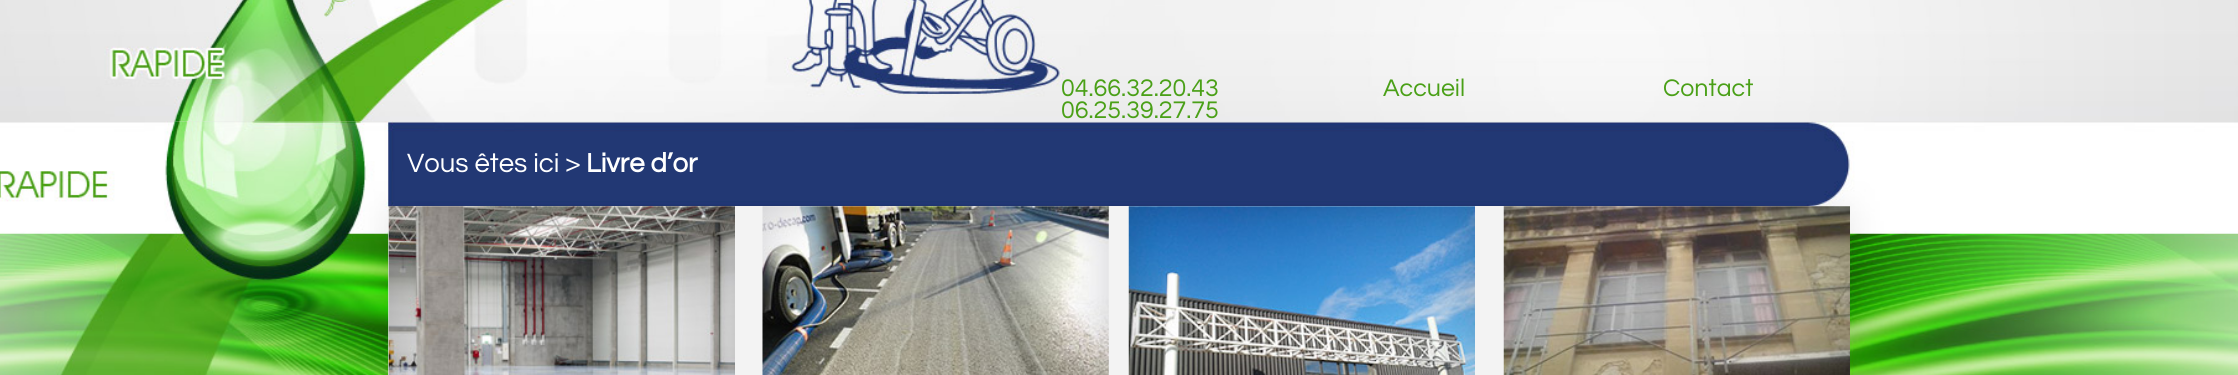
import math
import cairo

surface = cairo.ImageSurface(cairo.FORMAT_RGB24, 2238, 375)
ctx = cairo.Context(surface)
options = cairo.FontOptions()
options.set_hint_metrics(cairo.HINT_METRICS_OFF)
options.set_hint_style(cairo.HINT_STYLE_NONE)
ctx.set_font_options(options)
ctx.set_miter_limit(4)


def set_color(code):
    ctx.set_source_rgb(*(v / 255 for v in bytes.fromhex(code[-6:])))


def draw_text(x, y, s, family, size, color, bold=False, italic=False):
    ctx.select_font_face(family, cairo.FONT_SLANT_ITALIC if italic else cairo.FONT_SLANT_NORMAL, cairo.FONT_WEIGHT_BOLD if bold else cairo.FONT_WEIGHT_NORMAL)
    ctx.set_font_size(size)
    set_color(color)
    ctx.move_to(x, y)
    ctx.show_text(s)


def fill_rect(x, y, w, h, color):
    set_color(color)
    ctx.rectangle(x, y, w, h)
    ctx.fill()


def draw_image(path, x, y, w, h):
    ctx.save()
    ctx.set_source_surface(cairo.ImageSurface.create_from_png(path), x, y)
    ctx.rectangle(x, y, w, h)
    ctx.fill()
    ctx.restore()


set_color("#ffffff")
ctx.paint()
draw_image("assets/img1.png", 0, 121, 2238, 1)
draw_image("assets/img2.png", 0, 0, 2238, 122)
draw_text(1061, 96, "04.66.32.20.43", "Questrial", 25, "#4aa017")
draw_text(1061, 118, "06.25.39.27.75", "Questrial", 25, "#4aa017")
draw_text(1383, 96, "Accueil", "Questrial", 25, "#4aa017")
draw_text(1663, 96, "Contact", "Questrial", 25, "#4aa017")
draw_image("assets/img3.png", 0, 121, 2238, 1)
draw_image("assets/img4.png", 0, 121, 2238, 254)
draw_text(407, 172, "Vous êtes ici >", "Questrial", 27.5, "#ffffff")
draw_text(586, 172, "Livre d’or", "Questrial", 27.5, "#ffffff", bold=True)
fill_rect(408, 206, 1425, 169, "#f3f3f3")
draw_image("assets/img5.png", 388, 206, 347, 169)
draw_image("assets/img6.png", 762, 206, 347, 169)
draw_image("assets/img7.png", 1128, 206, 347, 169)
draw_image("assets/img8.png", 1503, 206, 347, 169)
surface.write_to_png("output.png")
